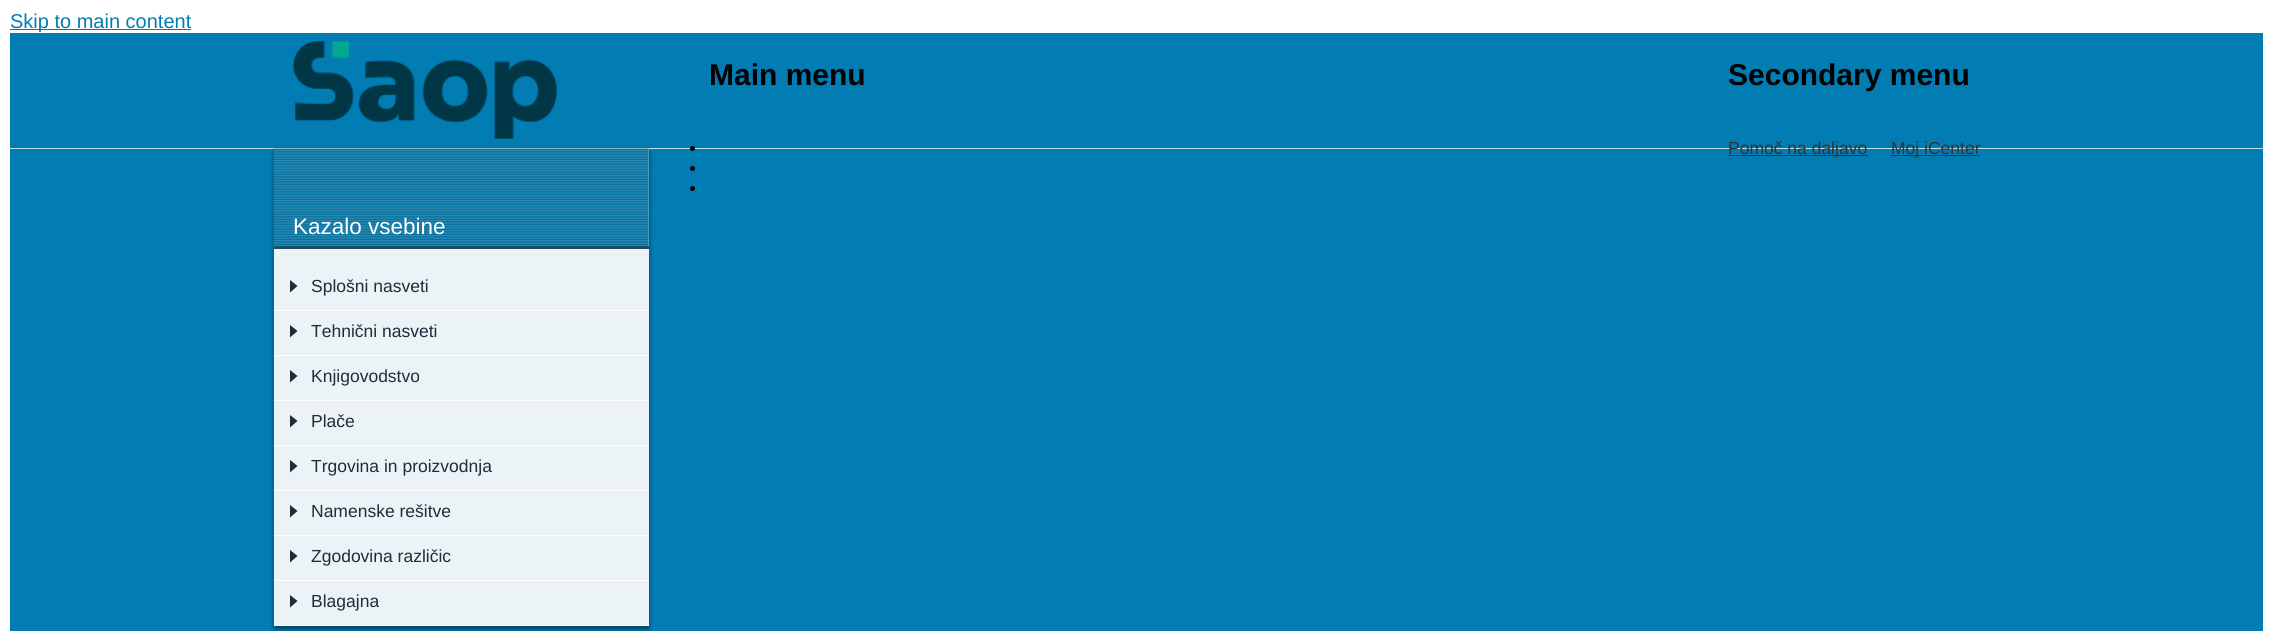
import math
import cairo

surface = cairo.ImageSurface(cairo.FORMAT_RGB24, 2272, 631)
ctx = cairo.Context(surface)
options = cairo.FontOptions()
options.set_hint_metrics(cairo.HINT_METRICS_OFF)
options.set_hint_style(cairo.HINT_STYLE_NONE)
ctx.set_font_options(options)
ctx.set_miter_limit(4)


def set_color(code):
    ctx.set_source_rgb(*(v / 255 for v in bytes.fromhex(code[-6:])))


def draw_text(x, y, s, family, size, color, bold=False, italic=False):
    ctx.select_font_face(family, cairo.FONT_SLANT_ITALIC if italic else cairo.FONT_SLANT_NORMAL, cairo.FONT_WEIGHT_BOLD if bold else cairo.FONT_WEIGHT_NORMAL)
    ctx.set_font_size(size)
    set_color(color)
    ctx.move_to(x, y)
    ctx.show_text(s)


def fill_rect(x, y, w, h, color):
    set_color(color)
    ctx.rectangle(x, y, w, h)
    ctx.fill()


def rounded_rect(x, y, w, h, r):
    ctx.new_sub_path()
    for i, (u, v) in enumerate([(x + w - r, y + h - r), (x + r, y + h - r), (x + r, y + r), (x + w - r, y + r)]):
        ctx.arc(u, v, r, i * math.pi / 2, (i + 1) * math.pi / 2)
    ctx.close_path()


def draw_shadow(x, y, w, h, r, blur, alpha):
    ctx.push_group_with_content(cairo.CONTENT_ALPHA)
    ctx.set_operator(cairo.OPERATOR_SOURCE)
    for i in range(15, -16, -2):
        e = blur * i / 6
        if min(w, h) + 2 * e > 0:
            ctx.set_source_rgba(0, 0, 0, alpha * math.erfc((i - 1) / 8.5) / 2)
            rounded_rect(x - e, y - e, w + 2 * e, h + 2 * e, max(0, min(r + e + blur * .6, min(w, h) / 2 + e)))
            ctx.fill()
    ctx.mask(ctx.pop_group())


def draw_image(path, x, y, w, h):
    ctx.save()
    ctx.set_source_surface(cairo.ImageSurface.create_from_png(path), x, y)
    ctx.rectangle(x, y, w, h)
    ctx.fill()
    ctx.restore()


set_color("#ffffff")
ctx.paint()
fill_rect(10, 29, 181, 1, "#017eb4")
draw_text(10, 28, "Skip to main content", "Liberation Sans", 20, "#017eb4")
fill_rect(10, 33, 2253, 598, "#017db4")
fill_rect(10, 148, 2253, 1, "#c4dfe9")
draw_image("assets/img1.png", 292, 41, 266, 98)
draw_text(709, 85, "Main menu", "Liberation Sans", 30, "#000000", bold=True)
ctx.new_path()
ctx.arc(692.5, 148.5, 2.5, 0, 2 * math.pi)
ctx.fill()
ctx.arc(692.5, 168.5, 2.5, 0, 2 * math.pi)
ctx.fill()
ctx.arc(692.5, 188.5, 2.5, 0, 2 * math.pi)
ctx.fill()
draw_text(1728, 85, "Secondary menu", "Liberation Sans", 30, "#000000", bold=True)
fill_rect(1728, 155, 140, 1, "#333333")
draw_text(1728, 154, "Pomoč na daljavo", "Liberation Sans", 17.5, "#333333")
fill_rect(1890, 155, 90, 1, "#333333")
draw_text(1891, 154, "Moj iCenter", "Liberation Sans", 17.5, "#333333")
set_color("#000000")
draw_shadow(274, 151, 375, 478, 0, 2.5, 0.5)
fill_rect(274, 149, 375, 476, "#ebf3f6")
draw_image("assets/img2.png", 273, 148, 376, 101)
fill_rect(274, 246, 375, 3, "#1c4e63")
draw_text(293, 234, "Kazalo vsebine", "Liberation Sans", 22.5, "#ffffff")
fill_rect(274, 310, 375, 1, "#ffffff")
set_color("#232a3b")
ctx.new_path()
ctx.move_to(290, 292.5)
ctx.line_to(290, 280)
ctx.line_to(297.5, 286)
ctx.close_path()
ctx.fill()
draw_text(311, 292, "Splošni nasveti", "Liberation Sans", 17.5, "#232a3b")
fill_rect(274, 355, 375, 1, "#ffffff")
set_color("#232a3b")
ctx.new_path()
ctx.move_to(290, 337.5)
ctx.line_to(290, 325)
ctx.line_to(297.5, 331)
ctx.close_path()
ctx.fill()
draw_text(311, 337, "Tehnični nasveti", "Liberation Sans", 17.5, "#232a3b")
fill_rect(274, 400, 375, 1, "#ffffff")
set_color("#232a3b")
ctx.new_path()
ctx.move_to(290, 382.5)
ctx.line_to(290, 370)
ctx.line_to(297.5, 376)
ctx.close_path()
ctx.fill()
draw_text(311, 382, "Knjigovodstvo", "Liberation Sans", 17.5, "#232a3b")
fill_rect(274, 445, 375, 1, "#ffffff")
set_color("#232a3b")
ctx.new_path()
ctx.move_to(290, 427.5)
ctx.line_to(290, 415)
ctx.line_to(297.5, 421)
ctx.close_path()
ctx.fill()
draw_text(311, 427, "Plače", "Liberation Sans", 17.5, "#232a3b")
fill_rect(274, 490, 375, 1, "#ffffff")
set_color("#232a3b")
ctx.new_path()
ctx.move_to(290, 472.5)
ctx.line_to(290, 460)
ctx.line_to(297.5, 466)
ctx.close_path()
ctx.fill()
draw_text(311, 472, "Trgovina in proizvodnja", "Liberation Sans", 17.5, "#232a3b")
fill_rect(274, 535, 375, 1, "#ffffff")
set_color("#232a3b")
ctx.new_path()
ctx.move_to(290, 517.5)
ctx.line_to(290, 505)
ctx.line_to(297.5, 511)
ctx.close_path()
ctx.fill()
draw_text(311, 517, "Namenske rešitve", "Liberation Sans", 17.5, "#232a3b")
fill_rect(274, 580, 375, 1, "#ffffff")
set_color("#232a3b")
ctx.new_path()
ctx.move_to(290, 562.5)
ctx.line_to(290, 550)
ctx.line_to(297.5, 556)
ctx.close_path()
ctx.fill()
draw_text(311, 562, "Zgodovina različic", "Liberation Sans", 17.5, "#232a3b")
fill_rect(274, 625, 375, 1, "#ffffff")
set_color("#232a3b")
ctx.new_path()
ctx.move_to(290, 607.5)
ctx.line_to(290, 595)
ctx.line_to(297.5, 601)
ctx.close_path()
ctx.fill()
draw_text(311, 607, "Blagajna", "Liberation Sans", 17.5, "#232a3b")
surface.write_to_png("output.png")
